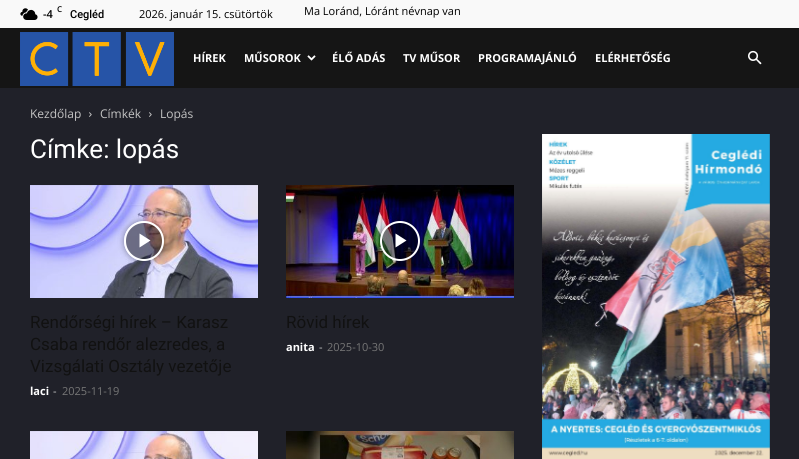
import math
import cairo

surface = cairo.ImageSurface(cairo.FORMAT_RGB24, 799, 459)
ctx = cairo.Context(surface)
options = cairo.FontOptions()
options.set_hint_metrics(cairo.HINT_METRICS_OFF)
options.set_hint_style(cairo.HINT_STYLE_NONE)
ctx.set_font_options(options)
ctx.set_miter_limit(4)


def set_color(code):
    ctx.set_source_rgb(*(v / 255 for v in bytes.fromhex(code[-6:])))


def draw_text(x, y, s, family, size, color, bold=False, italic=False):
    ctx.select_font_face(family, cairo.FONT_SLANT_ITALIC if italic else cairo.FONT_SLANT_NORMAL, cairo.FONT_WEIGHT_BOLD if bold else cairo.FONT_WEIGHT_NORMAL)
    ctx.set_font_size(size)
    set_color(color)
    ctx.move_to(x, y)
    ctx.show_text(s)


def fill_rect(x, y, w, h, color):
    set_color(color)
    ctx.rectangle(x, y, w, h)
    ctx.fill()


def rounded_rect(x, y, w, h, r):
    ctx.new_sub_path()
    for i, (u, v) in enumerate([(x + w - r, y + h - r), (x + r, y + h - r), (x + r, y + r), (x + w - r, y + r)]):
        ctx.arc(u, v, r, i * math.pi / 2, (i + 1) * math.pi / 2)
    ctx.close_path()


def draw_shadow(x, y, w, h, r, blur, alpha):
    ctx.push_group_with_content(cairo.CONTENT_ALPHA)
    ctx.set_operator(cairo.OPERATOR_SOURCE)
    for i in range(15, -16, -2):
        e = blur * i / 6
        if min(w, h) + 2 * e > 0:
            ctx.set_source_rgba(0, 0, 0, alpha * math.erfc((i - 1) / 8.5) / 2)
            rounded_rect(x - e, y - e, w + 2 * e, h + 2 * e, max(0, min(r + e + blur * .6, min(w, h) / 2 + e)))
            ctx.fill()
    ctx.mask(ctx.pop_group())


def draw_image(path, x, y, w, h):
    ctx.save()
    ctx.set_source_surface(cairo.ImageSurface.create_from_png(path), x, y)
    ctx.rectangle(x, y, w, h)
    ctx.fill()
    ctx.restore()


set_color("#202129")
ctx.paint()
fill_rect(0, 0, 799, 28, "#f9f9f9")
draw_image("assets/img1.png", 20, 8, 18, 12)
draw_text(43, 18, "-4", "Open Sans SemiBold", 11, "#000000")
draw_text(57, 12, "C", "Open Sans SemiBold", 8, "#000000")
draw_text(70, 18, "Cegléd", "Roboto Medium", 11, "#000000")
draw_text(139, 18, "2026. január 15. csütörtök", "Open Sans", 11, "#000000")
draw_text(304, 15, "Ma Loránd, Lóránt névnap van", "Open Sans", 11, "#000000")
fill_rect(0, 28, 799, 60, "#151515")
draw_image("assets/img2.png", 20, 32, 154, 54)
draw_text(193, 62, "HÍREK", "Open Sans", 11, "#ffffff", bold=True)
draw_text(244, 62, "MŰSOROK", "Open Sans", 11, "#ffffff", bold=True)
draw_image("assets/img3.png", 307, 55, 9, 6)
draw_text(332, 62, "ÉLŐ ADÁS", "Open Sans", 11, "#ffffff", bold=True)
draw_text(403, 62, "TV MŰSOR", "Open Sans", 11, "#ffffff", bold=True)
draw_text(478, 62, "PROGRAMAJÁNLÓ", "Open Sans", 11, "#ffffff", bold=True)
draw_text(595, 62, "ELÉRHETŐSÉG", "Open Sans", 11, "#ffffff", bold=True)
draw_image("assets/img4.png", 748, 50, 14, 15)
draw_text(30, 118, "Kezdőlap", "Open Sans", 12, "#c3c3c3")
draw_image("assets/img5.png", 89, 112, 3, 5)
draw_text(100, 118, "Címkék", "Open Sans", 12, "#c3c3c3")
draw_image("assets/img5.png", 149, 112, 3, 5)
draw_text(160, 118, "Lopás", "Open Sans", 12, "#c3c3c3")
draw_text(30, 158, "Címke: lopás", "Roboto", 26, "#ffffff")
draw_image("assets/img6.png", 30, 185, 228, 113)
ctx.save()
ctx.set_fill_rule(cairo.FILL_RULE_EVEN_ODD)
ctx.new_path()
ctx.move_to(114, 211)
ctx.line_to(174, 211)
ctx.line_to(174, 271)
ctx.line_to(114, 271)
ctx.close_path()
ctx.move_to(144, 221)
ctx.curve_to(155, 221, 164, 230, 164, 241)
ctx.curve_to(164, 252, 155, 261, 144, 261)
ctx.curve_to(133, 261, 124, 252, 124, 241)
ctx.curve_to(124, 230, 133, 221, 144, 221)
ctx.close_path()
ctx.clip()
set_color("#000000")
draw_shadow(124, 221, 40, 40, 20, 3, 0.4)
ctx.restore()
ctx.set_source_rgba(0, 0, 0, 0.48)
ctx.arc(144, 241, 19, 0, 2 * math.pi)
ctx.fill_preserve()
set_color("#ffffff")
ctx.stroke()
ctx.new_path()
ctx.move_to(139.5, 233.5)
ctx.line_to(139.5, 247.5)
ctx.line_to(150.5, 240.5)
ctx.close_path()
ctx.fill()
draw_text(30, 328, "Rendőrségi hírek – Karasz", "Roboto", 17, "#111111")
draw_text(30, 350, "Csaba rendőr alezredes, a", "Roboto", 17, "#111111")
draw_text(30, 372, "Vizsgálati Osztály vezetője", "Roboto", 17, "#111111")
draw_text(30, 395, "laci", "Open Sans", 11, "#ffffff", bold=True)
draw_text(53, 395, "-", "Open Sans", 11, "#cccccc")
draw_text(62, 395, "2025-11-19", "Open Sans", 11, "#767676")
draw_image("assets/img7.png", 286, 185, 228, 113)
ctx.save()
ctx.set_fill_rule(cairo.FILL_RULE_EVEN_ODD)
ctx.new_path()
ctx.move_to(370, 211)
ctx.line_to(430, 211)
ctx.line_to(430, 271)
ctx.line_to(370, 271)
ctx.close_path()
ctx.move_to(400, 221)
ctx.curve_to(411, 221, 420, 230, 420, 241)
ctx.curve_to(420, 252, 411, 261, 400, 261)
ctx.curve_to(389, 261, 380, 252, 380, 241)
ctx.curve_to(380, 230, 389, 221, 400, 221)
ctx.close_path()
ctx.clip()
set_color("#000000")
draw_shadow(380, 221, 40, 40, 20, 3, 0.4)
ctx.restore()
ctx.set_source_rgba(0, 0, 0, 0.48)
ctx.arc(400, 241, 19, 0, 2 * math.pi)
ctx.fill_preserve()
set_color("#ffffff")
ctx.stroke()
ctx.new_path()
ctx.move_to(395.5, 233.5)
ctx.line_to(395.5, 247.5)
ctx.line_to(406.5, 240.5)
ctx.close_path()
ctx.fill()
draw_text(286, 328, "Rövid hírek", "Roboto", 17, "#111111")
draw_text(286, 351, "anita", "Open Sans", 11, "#ffffff", bold=True)
draw_text(319, 351, "-", "Open Sans", 11, "#cccccc")
draw_text(327, 351, "2025-10-30", "Open Sans", 11, "#767676")
draw_image("assets/img8.png", 30, 431, 228, 28)
draw_image("assets/img9.png", 286, 431, 228, 28)
draw_image("assets/img10.png", 542, 134, 228, 325)
surface.write_to_png("output.png")
